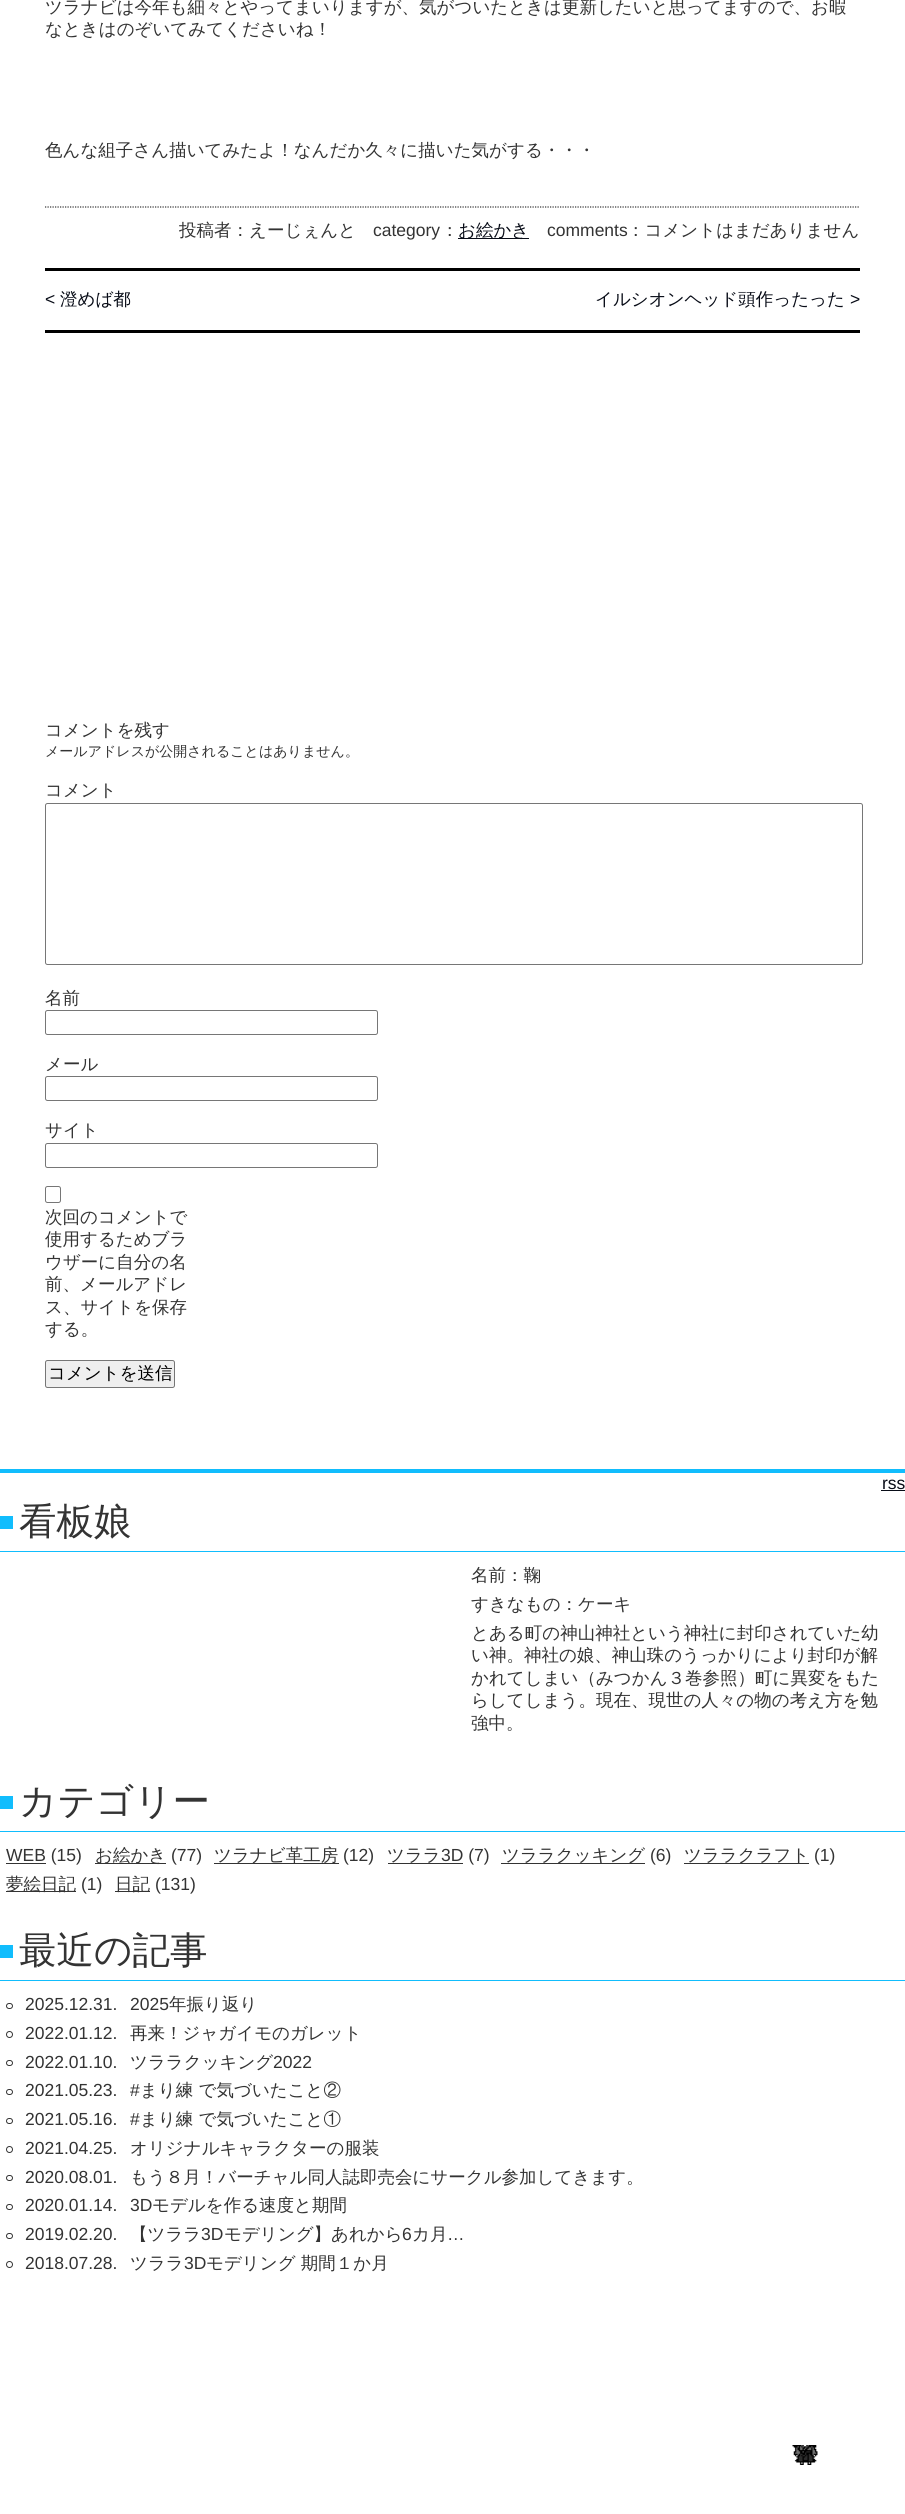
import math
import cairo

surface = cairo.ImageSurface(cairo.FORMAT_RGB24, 905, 2514)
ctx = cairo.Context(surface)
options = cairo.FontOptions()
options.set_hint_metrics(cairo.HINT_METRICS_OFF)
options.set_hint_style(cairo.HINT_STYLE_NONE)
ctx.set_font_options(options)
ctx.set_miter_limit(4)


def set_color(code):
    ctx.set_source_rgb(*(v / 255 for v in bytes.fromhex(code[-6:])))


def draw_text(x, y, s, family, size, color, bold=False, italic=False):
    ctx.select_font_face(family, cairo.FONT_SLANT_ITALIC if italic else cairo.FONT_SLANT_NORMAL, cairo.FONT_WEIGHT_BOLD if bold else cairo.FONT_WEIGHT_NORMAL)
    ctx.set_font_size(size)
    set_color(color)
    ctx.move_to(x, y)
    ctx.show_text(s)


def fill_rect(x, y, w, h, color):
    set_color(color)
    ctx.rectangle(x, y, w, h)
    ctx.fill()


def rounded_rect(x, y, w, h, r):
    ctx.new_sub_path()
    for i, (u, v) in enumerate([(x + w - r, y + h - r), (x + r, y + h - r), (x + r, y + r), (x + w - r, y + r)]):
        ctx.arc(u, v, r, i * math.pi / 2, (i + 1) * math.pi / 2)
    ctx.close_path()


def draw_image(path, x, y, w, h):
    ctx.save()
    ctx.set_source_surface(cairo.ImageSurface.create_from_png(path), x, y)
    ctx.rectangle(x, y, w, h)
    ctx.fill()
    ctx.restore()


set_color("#ffffff")
ctx.paint()
draw_text(45, 13, "ツラナビは今年も細々とやってまいりますが、気がついたときは更新したいと思ってますので、お暇", "WenQuanYi Zen Hei Medium", 17.5, "#333333")
draw_text(45, 35, "なときはのぞいてみてくださいね！", "WenQuanYi Zen Hei Medium", 17.5, "#333333")
draw_text(45, 156, "色んな組子さん描いてみたよ！なんだか久々に描いた気がする・・・", "WenQuanYi Zen Hei Medium", 17.5, "#333333")
ctx.new_path()
ctx.move_to(45, 207)
ctx.line_to(860, 207)
ctx.set_line_width(1.2)
ctx.set_dash([1.25, 1.25])
ctx.stroke()
draw_text(179, 236, "投稿者：えーじぇんと", "WenQuanYi Zen Hei Medium", 17.5, "#333333")
draw_text(373, 236, "category", "Liberation Sans", 17.5, "#333333")
draw_text(441, 236, "：", "WenQuanYi Zen Hei Medium", 17.5, "#333333")
fill_rect(458, 238, 71, 1, "#080c17")
draw_text(458, 236, "お絵かき", "WenQuanYi Zen Hei Medium", 17.5, "#080c17")
draw_text(547, 236, "comments", "Liberation Sans", 17.5, "#333333")
draw_text(627, 236, "：コメントはまだありません", "WenQuanYi Zen Hei Medium", 17.5, "#333333")
fill_rect(45, 268, 815, 3, "#000000")
fill_rect(45, 330, 815, 3, "#000000")
draw_text(45, 305, "<", "Liberation Sans", 17.5, "#080c17")
draw_text(60, 305, "澄めば都", "WenQuanYi Zen Hei Medium", 17.5, "#080c17")
draw_text(595, 305, "イルシオンヘッド頭作ったった", "WenQuanYi Zen Hei Medium", 17.5, "#080c17")
draw_text(850, 305, ">", "Liberation Sans", 17.5, "#080c17")
draw_text(45, 736, "コメントを残す", "WenQuanYi Zen Hei Medium", 17.5, "#333333")
draw_text(45, 756, "メールアドレスが公開されることはありません。", "WenQuanYi Zen Hei Medium", 14, "#333333")
draw_text(45, 796, "コメント", "WenQuanYi Zen Hei Medium", 17.5, "#333333")
rounded_rect(45.5, 803.5, 817, 161, 2)
set_color("#767676")
ctx.set_line_width(1)
ctx.set_dash([])
ctx.stroke()
draw_text(45, 1004, "名前", "WenQuanYi Zen Hei Medium", 17.5, "#333333")
rounded_rect(45.5, 1010.5, 332, 24, 2)
set_color("#767676")
ctx.stroke()
draw_text(45, 1070, "メール", "WenQuanYi Zen Hei Medium", 17.5, "#333333")
rounded_rect(45.5, 1076.5, 332, 24, 2)
set_color("#767676")
ctx.stroke()
draw_text(45, 1136, "サイト", "WenQuanYi Zen Hei Medium", 17.5, "#333333")
rounded_rect(45.5, 1143.5, 332, 24, 2)
set_color("#767676")
ctx.stroke()
rounded_rect(45.5, 1186.5, 15, 16, 2)
ctx.stroke()
draw_text(45, 1223, "次回のコメントで", "WenQuanYi Zen Hei Medium", 17.5, "#333333")
draw_text(45, 1245, "使用するためブラ", "WenQuanYi Zen Hei Medium", 17.5, "#333333")
draw_text(45, 1268, "ウザーに自分の名", "WenQuanYi Zen Hei Medium", 17.5, "#333333")
draw_text(45, 1290, "前、メールアドレ", "WenQuanYi Zen Hei Medium", 17.5, "#333333")
draw_text(45, 1313, "ス、サイトを保存", "WenQuanYi Zen Hei Medium", 17.5, "#333333")
draw_text(45, 1335, "する。", "WenQuanYi Zen Hei Medium", 17.5, "#333333")
set_color("#efefef")
rounded_rect(45.5, 1360.5, 129, 27, 2)
ctx.fill_preserve()
set_color("#767676")
ctx.stroke()
draw_text(48, 1379, "コメントを送信", "WenQuanYi Zen Hei Medium", 17.5, "#000000")
fill_rect(0, 1469, 905, 4, "#11bdfd")
draw_text(882, 1489, "rss", "Liberation Sans", 17.5, "#080c17")
fill_rect(881, 1490, 24, 1, "#080c17")
fill_rect(0, 1516, 13, 13, "#11bdfd")
fill_rect(0, 1551, 905, 1, "#11bdfd")
draw_text(19, 1534, "看板娘", "WenQuanYi Zen Hei Medium", 37.5, "#333333")
draw_text(471, 1581, "名前：鞠", "WenQuanYi Zen Hei Medium", 17.5, "#333333")
draw_text(471, 1610, "すきなもの：ケーキ", "WenQuanYi Zen Hei Medium", 17.5, "#333333")
draw_text(471, 1639, "とある町の神山神社という神社に封印されていた幼", "WenQuanYi Zen Hei Medium", 17.5, "#333333")
draw_text(471, 1661, "い神。神社の娘、神山珠のうっかりにより封印が解", "WenQuanYi Zen Hei Medium", 17.5, "#333333")
draw_text(471, 1684, "かれてしまい（みつかん３巻参照）町に異変をもた", "WenQuanYi Zen Hei Medium", 17.5, "#333333")
draw_text(471, 1706, "らしてしまう。現在、現世の人々の物の考え方を勉", "WenQuanYi Zen Hei Medium", 17.5, "#333333")
draw_text(471, 1729, "強中。", "WenQuanYi Zen Hei Medium", 17.5, "#333333")
fill_rect(0, 1796, 13, 13, "#11bdfd")
fill_rect(0, 1831, 905, 1, "#11bdfd")
draw_text(19, 1814, "カテゴリー", "WenQuanYi Zen Hei Medium", 37.5, "#333333")
fill_rect(6, 1863, 40, 1, "#333333")
draw_text(6, 1861, "WEB (15)", "Liberation Sans", 17.5, "#333333")
fill_rect(95, 1863, 71, 1, "#333333")
draw_text(95, 1861, "お絵かき", "WenQuanYi Zen Hei Medium", 17.5, "#333333")
draw_text(171, 1861, "(77)", "Liberation Sans", 17.5, "#333333")
fill_rect(214, 1863, 125, 1, "#333333")
draw_text(214, 1861, "ツラナビ革工房", "WenQuanYi Zen Hei Medium", 17.5, "#333333")
draw_text(343, 1861, "(12)", "Liberation Sans", 17.5, "#333333")
draw_text(387, 1861, "ツララ", "WenQuanYi Zen Hei Medium", 17.5, "#333333")
fill_rect(388, 1863, 75, 1, "#333333")
draw_text(441, 1861, "3D (7)", "Liberation Sans", 17.5, "#333333")
fill_rect(501, 1863, 144, 1, "#333333")
draw_text(502, 1861, "ツララクッキング", "WenQuanYi Zen Hei Medium", 17.5, "#333333")
draw_text(650, 1861, "(6)", "Liberation Sans", 17.5, "#333333")
fill_rect(684, 1863, 125, 1, "#333333")
draw_text(684, 1861, "ツララクラフト", "WenQuanYi Zen Hei Medium", 17.5, "#333333")
draw_text(814, 1861, "(1)", "Liberation Sans", 17.5, "#333333")
fill_rect(6, 1891, 70, 1, "#333333")
draw_text(6, 1890, "夢絵日記", "WenQuanYi Zen Hei Medium", 17.5, "#333333")
draw_text(81, 1890, "(1)", "Liberation Sans", 17.5, "#333333")
fill_rect(115, 1891, 35, 1, "#333333")
draw_text(115, 1890, "日記", "WenQuanYi Zen Hei Medium", 17.5, "#333333")
draw_text(155, 1890, "(131)", "Liberation Sans", 17.5, "#333333")
fill_rect(0, 1945, 13, 13, "#11bdfd")
fill_rect(0, 1980, 905, 1, "#11bdfd")
draw_text(19, 1963, "最近の記事", "WenQuanYi Zen Hei Medium", 37.5, "#333333")
rounded_rect(6.5, 2003.5, 6, 5, 2.5)
ctx.stroke()
draw_text(25, 2010, "2025.12.31.", "Liberation Sans", 17.5, "#333333")
draw_text(130, 2010, "2025", "Liberation Sans", 17.5, "#333333")
draw_text(169, 2010, "年振り返り", "WenQuanYi Zen Hei Medium", 17.5, "#333333")
ctx.new_path()
ctx.arc(9.5, 2034.5, 3, 0, 2 * math.pi)
ctx.stroke()
draw_text(25, 2039, "2022.01.12.", "Liberation Sans", 17.5, "#333333")
draw_text(130, 2039, "再来！ジャガイモのガレット", "WenQuanYi Zen Hei Medium", 17.5, "#333333")
rounded_rect(6.5, 2060.5, 6, 5, 2.5)
ctx.stroke()
draw_text(25, 2068, "2022.01.10.", "Liberation Sans", 17.5, "#333333")
draw_text(130, 2068, "ツララクッキング", "WenQuanYi Zen Hei Medium", 17.5, "#333333")
draw_text(273, 2068, "2022", "Liberation Sans", 17.5, "#333333")
rounded_rect(6.5, 2089.5, 6, 5, 2.5)
ctx.stroke()
draw_text(25, 2096, "2021.05.23.", "Liberation Sans", 17.5, "#333333")
draw_text(130, 2096, "#", "Liberation Sans", 17.5, "#333333")
draw_text(140, 2096, "まり練 で気づいたこと②", "WenQuanYi Zen Hei Medium", 17.5, "#333333")
rounded_rect(6.5, 2118.5, 6, 5, 2.5)
ctx.stroke()
draw_text(25, 2125, "2021.05.16.", "Liberation Sans", 17.5, "#333333")
draw_text(130, 2125, "#", "Liberation Sans", 17.5, "#333333")
draw_text(140, 2125, "まり練 で気づいたこと①", "WenQuanYi Zen Hei Medium", 17.5, "#333333")
ctx.new_path()
ctx.arc(9.5, 2149.5, 3, 0, 2 * math.pi)
ctx.stroke()
draw_text(25, 2154, "2021.04.25.", "Liberation Sans", 17.5, "#333333")
draw_text(130, 2154, "オリジナルキャラクターの服装", "WenQuanYi Zen Hei Medium", 17.5, "#333333")
rounded_rect(6.5, 2175.5, 6, 5, 2.5)
ctx.stroke()
draw_text(25, 2183, "2020.08.01.", "Liberation Sans", 17.5, "#333333")
draw_text(130, 2183, "もう８月！バーチャル同人誌即売会にサークル参加してきます。", "WenQuanYi Zen Hei Medium", 17.5, "#333333")
rounded_rect(6.5, 2204.5, 6, 5, 2.5)
ctx.stroke()
draw_text(25, 2211, "2020.01.14.", "Liberation Sans", 17.5, "#333333")
draw_text(130, 2211, "3D", "Liberation Sans", 17.5, "#333333")
draw_text(152, 2211, "モデルを作る速度と期間", "WenQuanYi Zen Hei Medium", 17.5, "#333333")
rounded_rect(6.5, 2233.5, 6, 5, 2.5)
ctx.stroke()
draw_text(25, 2240, "2019.02.20.", "Liberation Sans", 17.5, "#333333")
draw_text(130, 2240, "【ツララ", "WenQuanYi Zen Hei Medium", 17.5, "#333333")
draw_text(201, 2240, "3D", "Liberation Sans", 17.5, "#333333")
draw_text(224, 2240, "モデリング】あれから", "WenQuanYi Zen Hei Medium", 17.5, "#333333")
draw_text(402, 2240, "6", "Liberation Sans", 17.5, "#333333")
draw_text(412, 2240, "カ月", "WenQuanYi Zen Hei Medium", 17.5, "#333333")
draw_text(447, 2240, "…", "Liberation Sans", 17.5, "#333333")
ctx.new_path()
ctx.arc(9.5, 2264.5, 3, 0, 2 * math.pi)
ctx.stroke()
draw_text(25, 2269, "2018.07.28.", "Liberation Sans", 17.5, "#333333")
draw_text(130, 2269, "ツララ", "WenQuanYi Zen Hei Medium", 17.5, "#333333")
draw_text(184, 2269, "3D", "Liberation Sans", 17.5, "#333333")
draw_text(206, 2269, "モデリング 期間１か月", "WenQuanYi Zen Hei Medium", 17.5, "#333333")
draw_image("assets/img1.png", 792, 2445, 26, 20)
surface.write_to_png("output.png")
